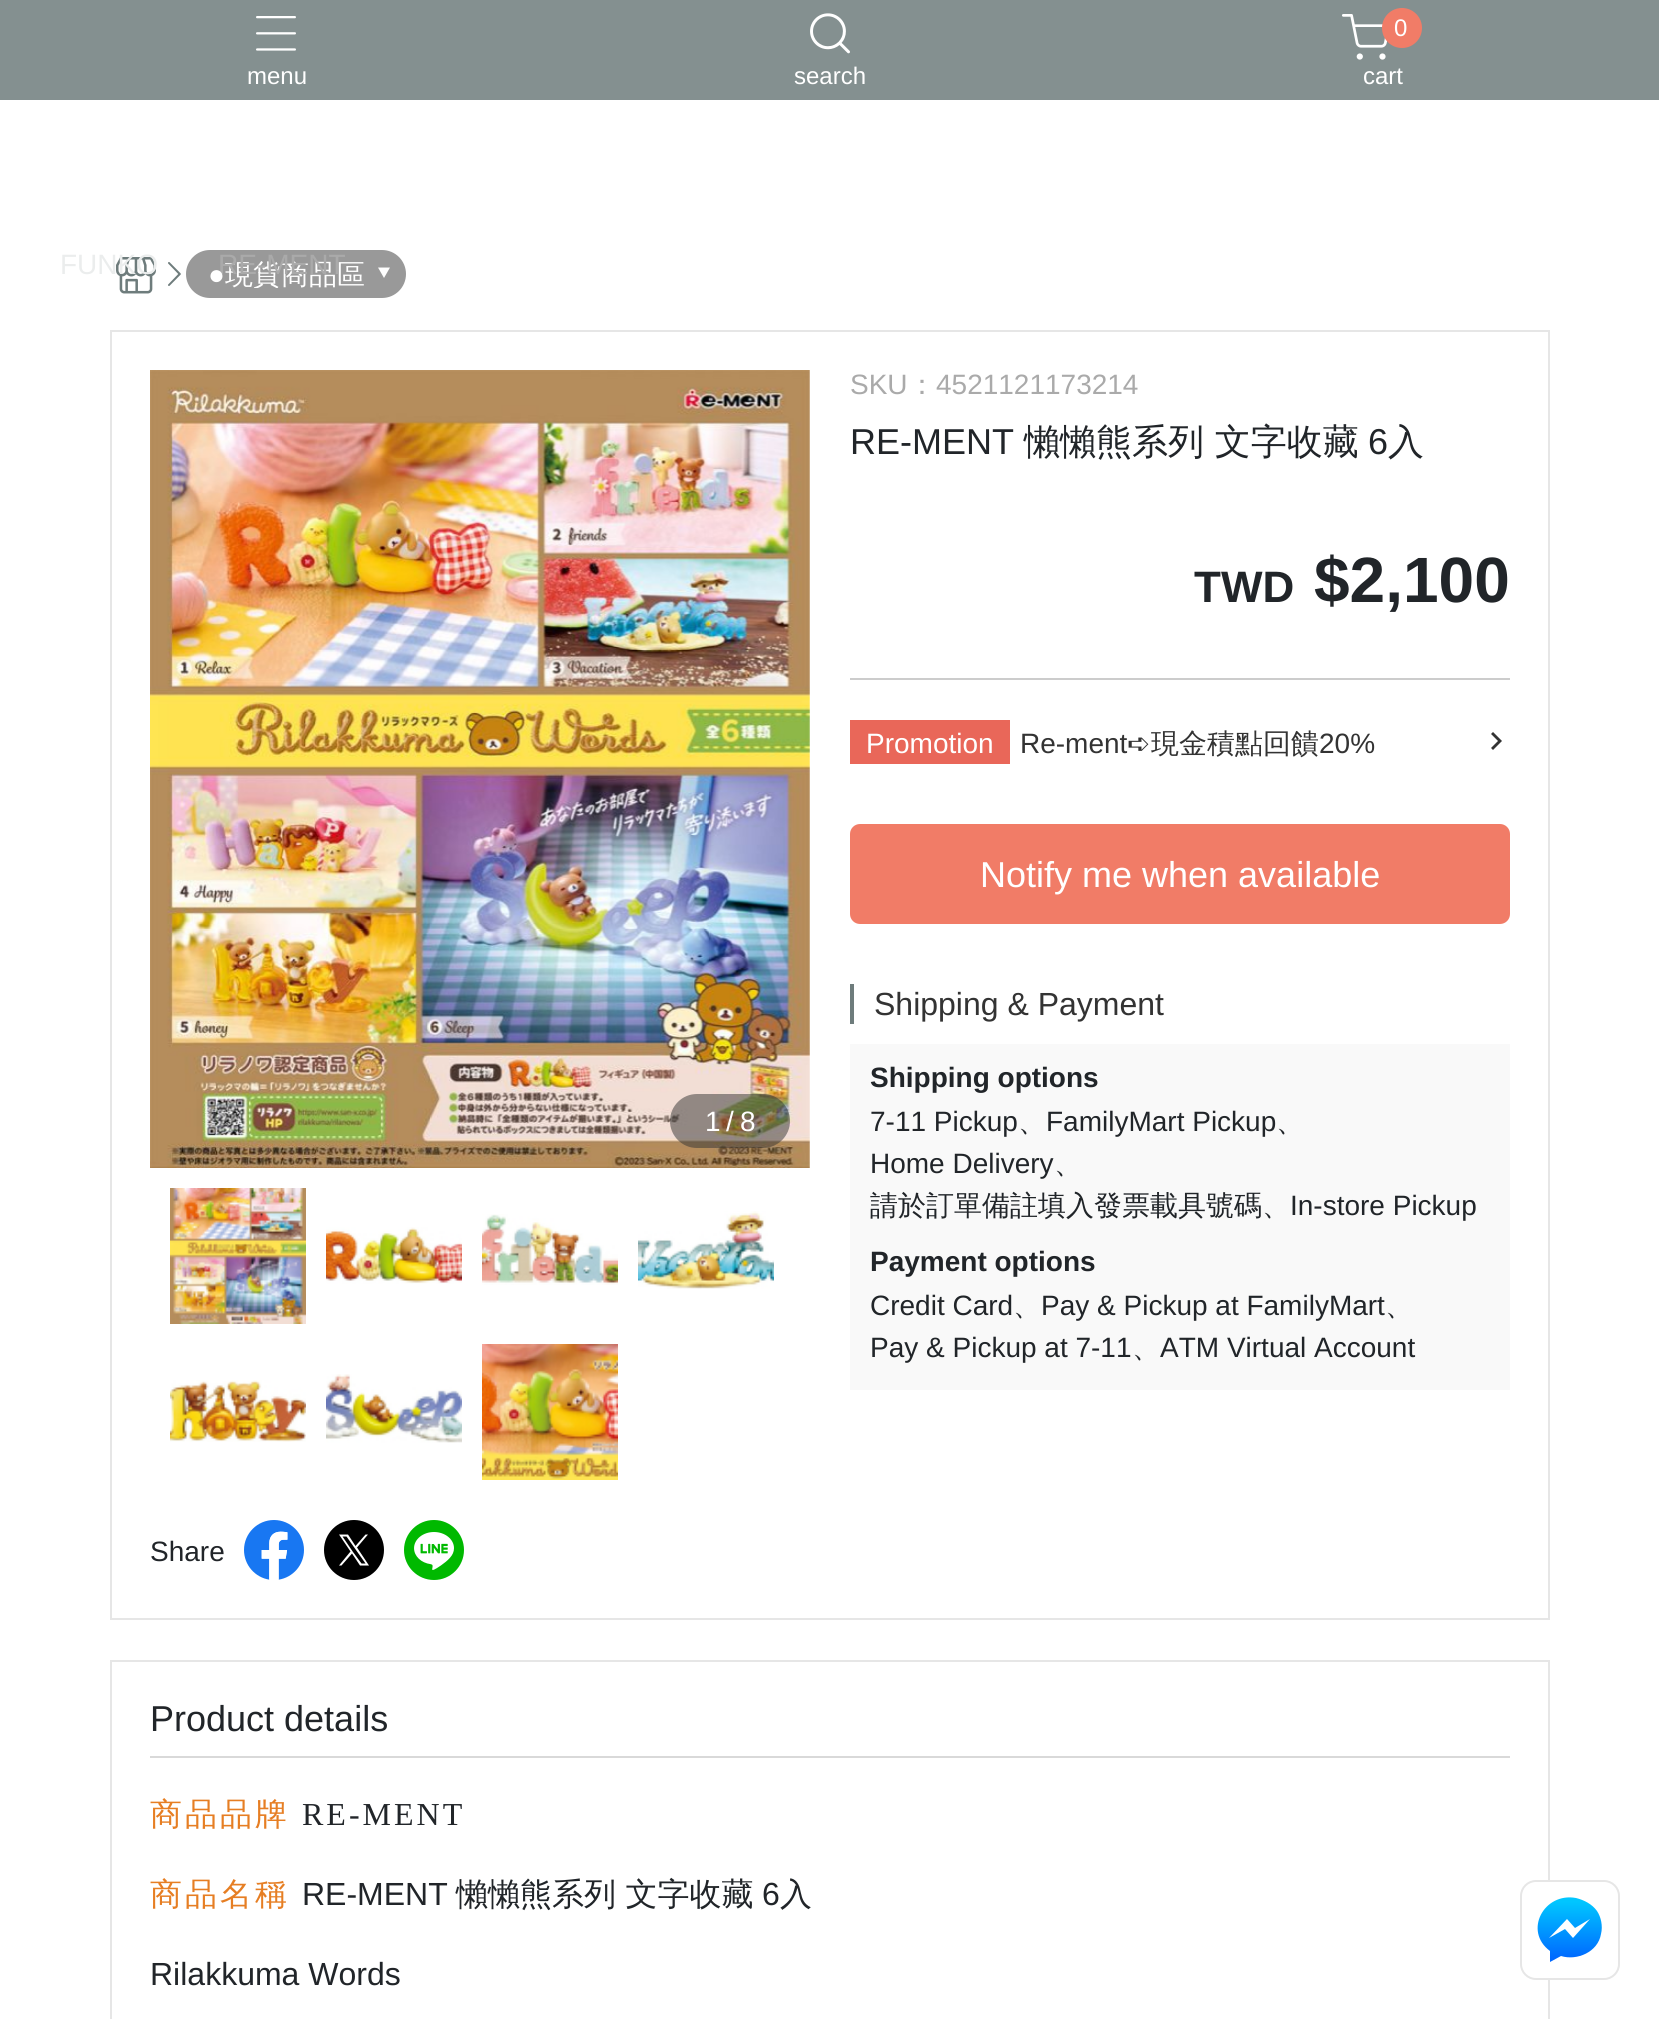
import math
import cairo

surface = cairo.ImageSurface(cairo.FORMAT_RGB24, 1659, 2019)
ctx = cairo.Context(surface)
options = cairo.FontOptions()
options.set_hint_metrics(cairo.HINT_METRICS_OFF)
options.set_hint_style(cairo.HINT_STYLE_NONE)
ctx.set_font_options(options)
ctx.set_miter_limit(4)


def set_color(code):
    ctx.set_source_rgb(*(v / 255 for v in bytes.fromhex(code[-6:])))


def draw_text(x, y, s, family, size, color, bold=False, italic=False):
    ctx.select_font_face(family, cairo.FONT_SLANT_ITALIC if italic else cairo.FONT_SLANT_NORMAL, cairo.FONT_WEIGHT_BOLD if bold else cairo.FONT_WEIGHT_NORMAL)
    ctx.set_font_size(size)
    set_color(color)
    ctx.move_to(x, y)
    ctx.show_text(s)


def draw_spaced(x, y, s, letter, word):
    ctx.move_to(x, y)
    for ch in s:
        ctx.show_text(ch)
        ctx.rel_move_to(letter + word * (ch == ' '), 0)


def fill_rect(x, y, w, h, color):
    set_color(color)
    ctx.rectangle(x, y, w, h)
    ctx.fill()


def rounded_rect(x, y, w, h, r):
    ctx.new_sub_path()
    for i, (u, v) in enumerate([(x + w - r, y + h - r), (x + r, y + h - r), (x + r, y + r), (x + w - r, y + r)]):
        ctx.arc(u, v, r, i * math.pi / 2, (i + 1) * math.pi / 2)
    ctx.close_path()


def draw_image(path, x, y, w, h):
    ctx.save()
    ctx.set_source_surface(cairo.ImageSurface.create_from_png(path), x, y)
    ctx.rectangle(x, y, w, h)
    ctx.fill()
    ctx.restore()


set_color("#ffffff")
ctx.paint()
fill_rect(0, 0, 1659, 100, "#849090")
draw_image("assets/img1.png", 1342, 14, 45, 46)
set_color("#f17c67")
ctx.arc(1402, 28, 20, 0, 2 * math.pi)
ctx.fill()
ctx.select_font_face("Liberation Sans")
ctx.set_font_size(24)
set_color("#ffffff")
draw_spaced(1394, 36, "0", 2, 0)
draw_text(1363, 84, "cart", "Liberation Sans", 24, "#ffffff")
draw_image("assets/img2.png", 810, 13, 40, 41)
draw_text(794, 84, "search", "Liberation Sans", 24, "#ffffff")
draw_image("assets/img4.png", 116, 257, 40, 37)
draw_text(60, 274, "FUNKO", "Liberation Sans", 28, "#ebeded")
set_color("#999999")
rounded_rect(187, 251, 218, 46, 23)
ctx.fill_preserve()
ctx.stroke()
ctx.save()
ctx.rectangle(208, 260, 156, 28)
ctx.clip()
draw_text(225, 284, "現貨商品區", "WenQuanYi Zen Hei Medium", 28, "#ffffff")
ctx.restore()
draw_text(218, 274, "RE-MENT", "Liberation Sans", 28, "#aaaaaa")
draw_image("assets/img3.png", 256, 16, 40, 35)
draw_text(247, 84, "menu", "Liberation Sans", 24, "#ffffff")
draw_image("assets/img5.png", 168, 262, 13, 24)
draw_text(208, 284, "●", "Liberation Sans", 28, "#ffffff")
ctx.new_path()
ctx.move_to(378, 267.5)
ctx.line_to(390, 267.5)
ctx.line_to(384, 278)
ctx.close_path()
ctx.fill()
draw_image("assets/img14.png", 244, 1520, 60, 60)
set_color("#000000")
ctx.arc(354, 1550, 30, 0, 2 * math.pi)
ctx.fill()
set_color("#ffffff")
ctx.new_path()
ctx.move_to(357, 1547.5)
ctx.line_to(368, 1534.5)
ctx.line_to(365.5, 1534.5)
ctx.line_to(355.5, 1546)
ctx.line_to(348, 1534.5)
ctx.line_to(339, 1534.5)
ctx.line_to(350.5, 1551.5)
ctx.line_to(339, 1565.5)
ctx.line_to(341.5, 1565.5)
ctx.line_to(352, 1553.5)
ctx.line_to(360, 1565.5)
ctx.line_to(369, 1565.5)
ctx.close_path()
ctx.move_to(353, 1552)
ctx.line_to(342.5, 1536.5)
ctx.line_to(346.5, 1536.5)
ctx.line_to(365.5, 1563.5)
ctx.line_to(361.5, 1563.5)
ctx.close_path()
ctx.fill()
draw_image("assets/img15.png", 404, 1520, 60, 60)
fill_rect(850, 678, 660, 2, "#cccccc")
fill_rect(850, 720, 160, 44, "#e96759")
set_color("#333333")
ctx.new_path()
ctx.move_to(1491, 748)
ctx.line_to(1498, 741)
ctx.line_to(1491, 734)
ctx.line_to(1493, 732)
ctx.line_to(1502, 741)
ctx.line_to(1493, 750)
ctx.close_path()
ctx.fill()
fill_rect(850, 984, 4, 40, "#6e7c7c")
fill_rect(850, 1044, 660, 346, "#f9f9f9")
ctx.rectangle(111, 331, 1438, 1288)
set_color("#e6e6e6")
ctx.stroke()
draw_image("assets/img6.png", 150, 370, 660, 798)
ctx.set_source_rgba(0.2, 0.2, 0.2, 0.5)
rounded_rect(670, 1094, 120, 54, 27)
ctx.fill()
draw_text(705, 1131, "1", "Liberation Sans", 28, "#ffffff")
draw_text(726, 1131, "/", "Liberation Sans", 28, "#ffffff")
draw_text(740, 1131, "8", "Liberation Sans", 28, "#ffffff")
draw_image("assets/img7.png", 170, 1188, 136, 136)
draw_image("assets/img8.png", 326, 1227, 136, 57)
draw_image("assets/img9.png", 482, 1214, 136, 71)
draw_image("assets/img10.png", 638, 1211, 136, 78)
draw_image("assets/img11.png", 170, 1380, 136, 62)
draw_image("assets/img12.png", 326, 1374, 136, 69)
draw_image("assets/img13.png", 482, 1344, 136, 136)
draw_text(150, 1561, "Share", "Liberation Sans", 28, "#212529")
draw_text(850, 394, "SKU", "Liberation Sans", 28, "#aaaaaa")
draw_text(908, 394, "：", "WenQuanYi Zen Hei Medium", 28, "#aaaaaa")
draw_text(936, 394, "4521121173214", "Liberation Sans", 28, "#aaaaaa")
draw_text(850, 454, "RE-MENT", "Liberation Sans", 36, "#212529")
draw_text(1024, 454, "懶懶熊系列 文字收藏", "WenQuanYi Zen Hei Medium", 36, "#212529")
draw_text(1368, 454, "6", "Liberation Sans", 36, "#212529")
draw_text(1388, 454, "入", "WenQuanYi Zen Hei Medium", 36, "#212529")
draw_text(1194, 602, "TWD", "Liberation Sans", 44, "#212529", bold=True)
draw_text(1314, 602, "$2,100", "Liberation Sans", 64, "#212529", bold=True)
draw_text(866, 753, "Promotion", "Liberation Sans", 28, "#ffffff")
draw_text(1020, 753, "Re-ment", "Liberation Sans", 28, "#333333")
draw_text(1127, 753, "➪", "DejaVu Sans", 28, "#333333")
draw_text(1151, 753, "現金積點回饋", "WenQuanYi Zen Hei Medium", 28, "#333333")
draw_text(1319, 753, "20%", "Liberation Sans", 28, "#333333")
set_color("#f17c67")
rounded_rect(851, 825, 658, 98, 9)
ctx.fill_preserve()
ctx.stroke()
draw_text(980, 887, "Notify me when available", "Liberation Sans", 36, "#ffffff")
draw_text(874, 1015, "Shipping & Payment", "Liberation Sans", 32, "#333333")
draw_text(870, 1087, "Shipping options", "Liberation Sans", 28, "#212529", bold=True)
draw_text(870, 1131, "7-11 Pickup", "Liberation Sans", 28, "#212529")
draw_text(1018, 1131, "、", "WenQuanYi Zen Hei Medium", 28, "#212529")
draw_text(1046, 1131, "FamilyMart Pickup", "Liberation Sans", 28, "#212529")
draw_text(1276, 1131, "、", "WenQuanYi Zen Hei Medium", 28, "#212529")
draw_text(870, 1173, "Home Delivery", "Liberation Sans", 28, "#212529")
draw_text(1054, 1173, "、", "WenQuanYi Zen Hei Medium", 28, "#212529")
draw_text(870, 1215, "請於訂單備註填入發票載具號碼、", "WenQuanYi Zen Hei Medium", 28, "#212529")
draw_text(1290, 1215, "In-store Pickup", "Liberation Sans", 28, "#212529")
draw_text(870, 1271, "Payment options", "Liberation Sans", 28, "#212529", bold=True)
draw_text(870, 1315, "Credit Card", "Liberation Sans", 28, "#212529")
draw_text(1013, 1315, "、", "WenQuanYi Zen Hei Medium", 28, "#212529")
draw_text(1041, 1315, "Pay & Pickup at FamilyMart", "Liberation Sans", 28, "#212529")
draw_text(1385, 1315, "、", "WenQuanYi Zen Hei Medium", 28, "#212529")
draw_text(870, 1357, "Pay & Pickup at 7-11", "Liberation Sans", 28, "#212529")
draw_text(1132, 1357, "、", "WenQuanYi Zen Hei Medium", 28, "#212529")
draw_text(1160, 1357, "ATM Virtual Account", "Liberation Sans", 28, "#212529")
fill_rect(150, 1756, 1360, 2, "#d9d9d9")
ctx.rectangle(111, 1661, 1438, 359)
set_color("#e6e6e6")
ctx.stroke()
draw_text(150, 1731, "Product details", "Liberation Sans", 36, "#212529")
ctx.select_font_face("WenQuanYi Zen Hei Medium")
ctx.set_font_size(32)
set_color("#e67e23")
draw_spaced(150, 1825, "商品品牌", 3, 0)
ctx.select_font_face("Liberation Serif")
set_color("#212529")
draw_spaced(302, 1825, "RE-MENT", 3, 0)
ctx.select_font_face("WenQuanYi Zen Hei Medium")
set_color("#e67e23")
draw_spaced(150, 1905, "商品名稱", 3, 0)
draw_text(302, 1905, "RE-MENT", "Liberation Sans", 32, "#212529")
draw_text(456, 1905, "懶懶熊系列 文字收藏", "WenQuanYi Zen Hei Medium", 32, "#212529")
draw_text(762, 1905, "6", "Liberation Sans", 32, "#212529")
draw_text(780, 1905, "入", "WenQuanYi Zen Hei Medium", 32, "#212529")
draw_text(150, 1985, "Rilakkuma Words", "Liberation Sans", 32, "#212529")
set_color("#ffffff")
rounded_rect(1521, 1881, 98, 98, 15)
ctx.fill_preserve()
set_color("#e6e6e6")
ctx.stroke()
gradient = cairo.LinearGradient(1570, 1902, 1570, 1959)
gradient.add_color_stop_rgba(0, 0, 0.776, 1, 1)
gradient.add_color_stop_rgba(1, 0, 0.408, 1, 1)
ctx.set_source(gradient)
ctx.new_path()
ctx.move_to(1550, 1951)
ctx.line_to(1550, 1962)
ctx.line_to(1561, 1956)
ctx.curve_to(1577, 1961, 1598, 1952, 1601, 1934)
ctx.curve_to(1603, 1926, 1601, 1917, 1597, 1911)
ctx.curve_to(1592, 1904, 1584, 1900, 1576, 1898)
ctx.curve_to(1544, 1892, 1523, 1931, 1550, 1951)
ctx.close_path()
ctx.fill()
set_color("#ffffff")
ctx.new_path()
ctx.move_to(1567, 1919)
ctx.line_to(1549, 1938)
ctx.line_to(1565, 1929)
ctx.line_to(1573, 1938)
ctx.line_to(1590, 1919)
ctx.line_to(1575, 1928)
ctx.close_path()
ctx.fill()
surface.write_to_png("output.png")
